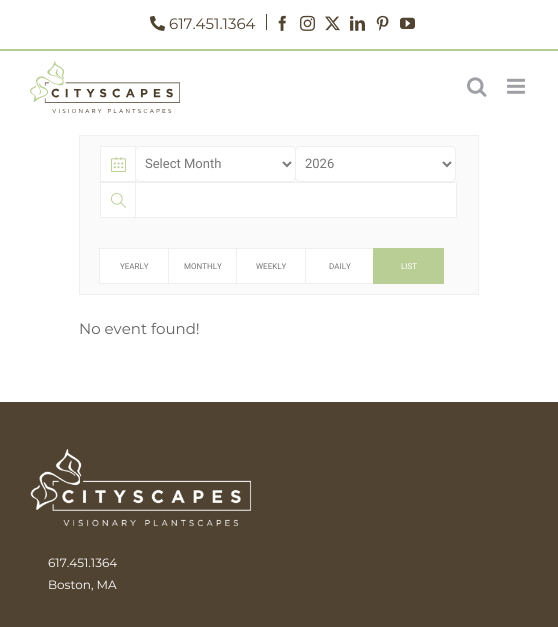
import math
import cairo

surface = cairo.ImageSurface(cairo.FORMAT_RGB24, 558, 627)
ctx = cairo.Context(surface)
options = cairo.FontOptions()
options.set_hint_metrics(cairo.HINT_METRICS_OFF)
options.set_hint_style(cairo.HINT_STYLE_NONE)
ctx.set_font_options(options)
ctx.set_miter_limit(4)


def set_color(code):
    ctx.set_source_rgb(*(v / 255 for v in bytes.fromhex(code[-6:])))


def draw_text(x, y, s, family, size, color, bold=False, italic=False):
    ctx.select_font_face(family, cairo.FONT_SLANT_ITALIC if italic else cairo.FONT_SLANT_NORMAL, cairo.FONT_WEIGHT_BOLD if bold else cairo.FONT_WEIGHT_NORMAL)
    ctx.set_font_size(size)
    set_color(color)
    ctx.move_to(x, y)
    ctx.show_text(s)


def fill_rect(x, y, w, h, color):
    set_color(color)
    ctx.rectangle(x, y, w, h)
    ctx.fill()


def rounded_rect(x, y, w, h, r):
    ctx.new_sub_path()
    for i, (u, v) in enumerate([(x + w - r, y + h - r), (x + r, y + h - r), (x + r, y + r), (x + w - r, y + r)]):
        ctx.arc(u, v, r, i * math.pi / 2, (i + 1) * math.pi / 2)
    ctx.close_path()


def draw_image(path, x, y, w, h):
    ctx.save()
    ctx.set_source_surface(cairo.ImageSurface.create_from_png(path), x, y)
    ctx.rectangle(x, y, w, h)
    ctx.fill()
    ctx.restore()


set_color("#ffffff")
ctx.paint()
fill_rect(0, 49, 558, 2, "#b5cb94")
draw_image("assets/img1.png", 150, 15, 15, 16)
draw_text(169, 29, "617.451.1364", "Montserrat", 15, "#514331")
fill_rect(266, 14, 1, 16, "#514331")
draw_image("assets/img2.png", 278, 15, 8, 16)
draw_image("assets/img3.png", 300, 15, 15, 16)
draw_image("assets/img4.png", 325, 16, 15, 15)
draw_image("assets/img5.png", 350, 16, 15, 15)
draw_image("assets/img6.png", 376, 15, 13, 16)
draw_image("assets/img7.png", 400, 17, 15, 12)
draw_image("assets/img8.png", 30, 61, 150, 52)
draw_image("assets/img9.png", 467, 77, 20, 20)
draw_image("assets/img10.png", 507, 78, 18, 16)
set_color("#fafafa")
ctx.rectangle(79.5, 135.5, 399, 159)
ctx.fill_preserve()
set_color("#efefef")
ctx.set_line_width(1)
ctx.stroke()
set_color("#ffffff")
ctx.rectangle(100.5, 146.5, 35, 35)
ctx.fill_preserve()
set_color("#efefef")
ctx.stroke()
draw_image("assets/img11.png", 111, 157, 15, 15)
set_color("#ffffff")
rounded_rect(135.5, 146.5, 160, 35, 4.5)
ctx.fill_preserve()
set_color("#efefef")
ctx.stroke()
ctx.new_path()
ctx.move_to(283, 162)
ctx.line_to(287, 166)
ctx.line_to(291, 162)
set_color("#777777")
ctx.set_line_width(2)
ctx.stroke()
draw_text(145, 168, "Select Month", "Roboto", 13, "#777777")
set_color("#ffffff")
rounded_rect(295.5, 146.5, 160, 35, 4.5)
ctx.fill_preserve()
set_color("#efefef")
ctx.set_line_width(1)
ctx.stroke()
ctx.new_path()
ctx.move_to(443, 162)
ctx.line_to(447, 166)
ctx.line_to(451, 162)
set_color("#777777")
ctx.set_line_width(2)
ctx.stroke()
draw_text(305, 168, "2026", "Roboto", 13, "#777777")
set_color("#ffffff")
ctx.rectangle(100.5, 182.5, 35, 35)
ctx.fill_preserve()
set_color("#efefef")
ctx.set_line_width(1)
ctx.stroke()
draw_image("assets/img12.png", 111, 193, 15, 15)
set_color("#ffffff")
ctx.rectangle(135.5, 182.5, 321, 35)
ctx.fill_preserve()
set_color("#efefef")
ctx.stroke()
fill_rect(100, 249, 68, 34, "#ffffff")
ctx.rectangle(99.5, 248.5, 70, 35)
set_color("#efefef")
ctx.stroke()
draw_text(120, 269, "YEARLY", "Roboto", 8, "#777777")
fill_rect(169, 249, 67, 34, "#ffffff")
ctx.rectangle(168.5, 248.5, 69, 35)
set_color("#efefef")
ctx.stroke()
draw_text(184, 269, "MONTHLY", "Roboto", 8, "#777777")
fill_rect(237, 249, 68, 34, "#ffffff")
ctx.rectangle(236.5, 248.5, 70, 35)
set_color("#efefef")
ctx.stroke()
draw_text(256, 269, "WEEKLY", "Roboto", 8, "#777777")
fill_rect(306, 249, 67, 34, "#ffffff")
ctx.rectangle(305.5, 248.5, 69, 35)
set_color("#efefef")
ctx.stroke()
draw_text(329, 269, "DAILY", "Roboto", 8, "#777777")
fill_rect(373, 248, 71, 36, "#b9ce95")
draw_text(401, 269, "LIST", "Roboto", 8, "#ffffff")
draw_text(79, 334, "No event found!", "Montserrat", 15, "#626262")
fill_rect(0, 402, 558, 225, "#514331")
draw_image("assets/img13.png", 30, 449, 222, 78)
draw_text(48, 567, "617.451.1364", "Montserrat", 12, "#ffffff")
draw_text(48, 589, "Boston, MA", "Montserrat", 12, "#ffffff")
surface.write_to_png("output.png")
